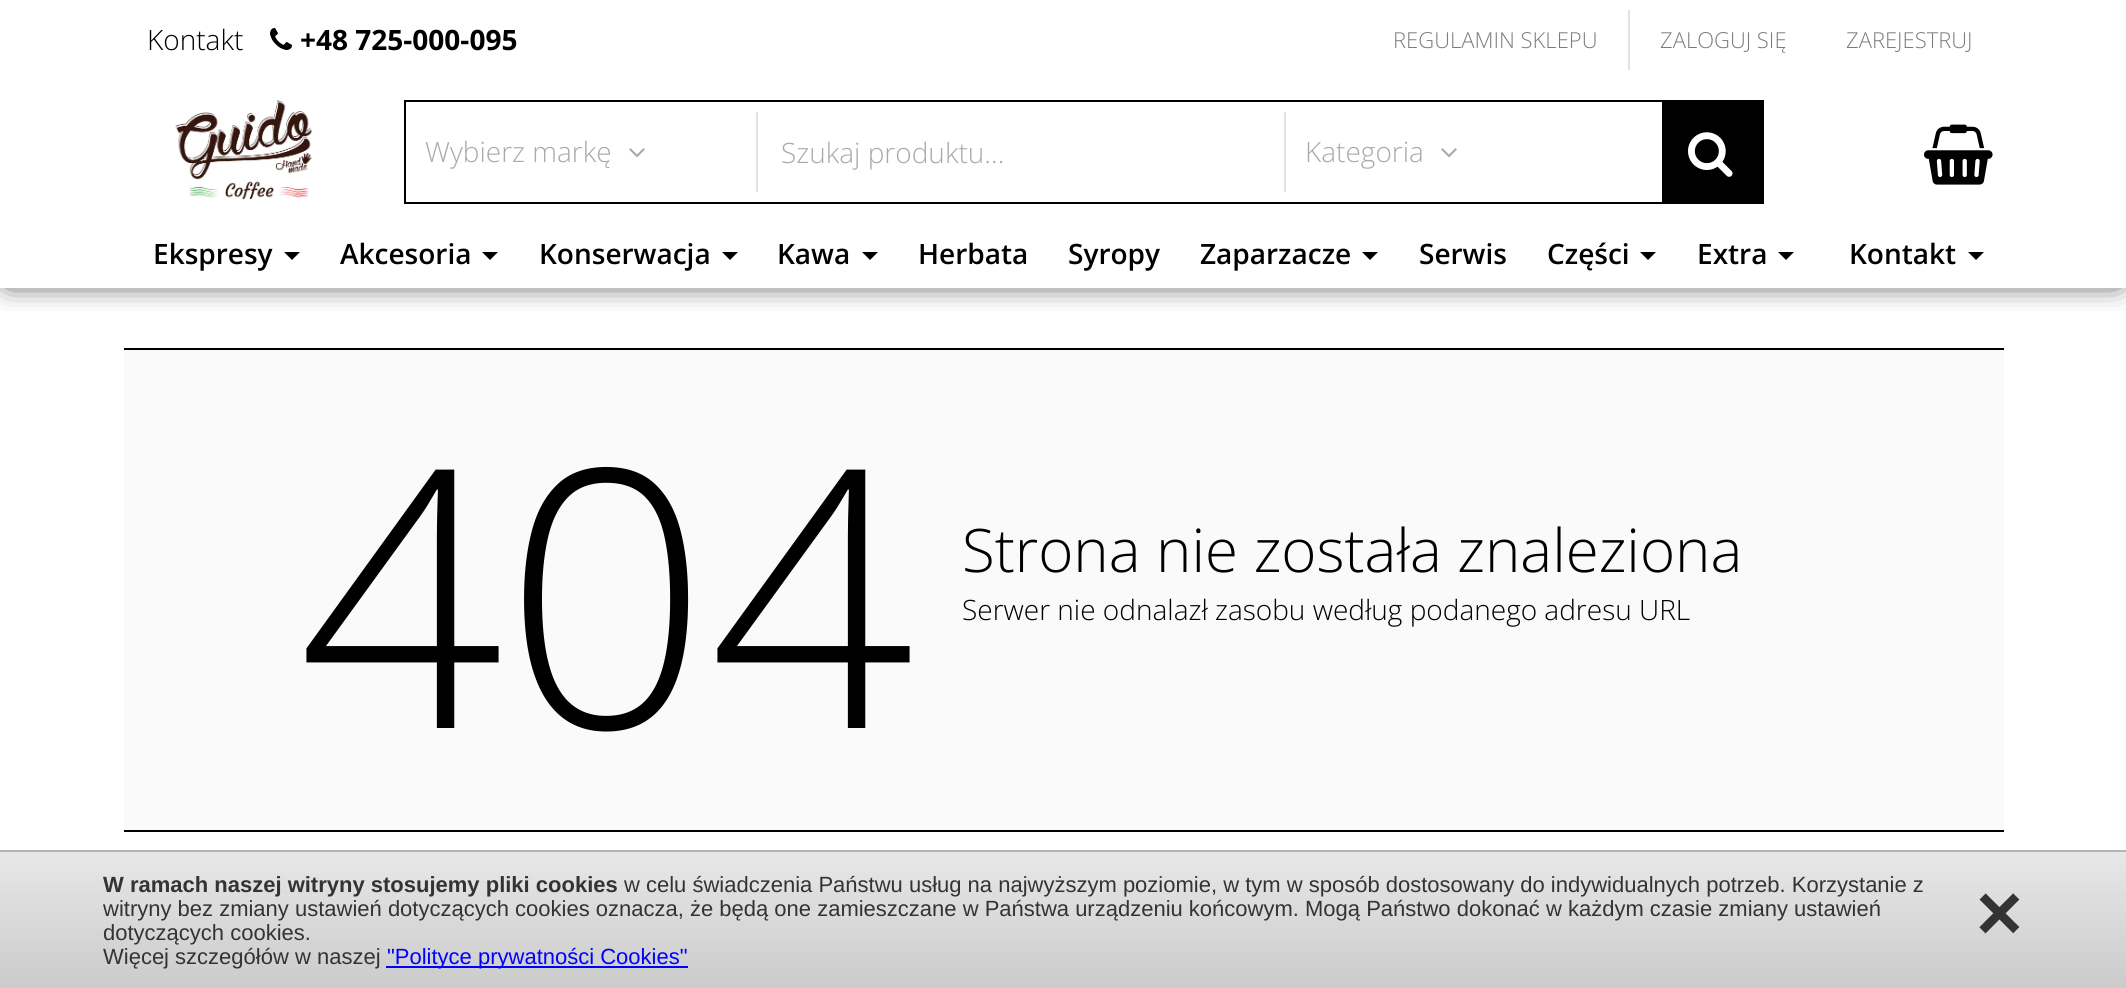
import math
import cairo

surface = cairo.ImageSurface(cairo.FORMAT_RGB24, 2126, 988)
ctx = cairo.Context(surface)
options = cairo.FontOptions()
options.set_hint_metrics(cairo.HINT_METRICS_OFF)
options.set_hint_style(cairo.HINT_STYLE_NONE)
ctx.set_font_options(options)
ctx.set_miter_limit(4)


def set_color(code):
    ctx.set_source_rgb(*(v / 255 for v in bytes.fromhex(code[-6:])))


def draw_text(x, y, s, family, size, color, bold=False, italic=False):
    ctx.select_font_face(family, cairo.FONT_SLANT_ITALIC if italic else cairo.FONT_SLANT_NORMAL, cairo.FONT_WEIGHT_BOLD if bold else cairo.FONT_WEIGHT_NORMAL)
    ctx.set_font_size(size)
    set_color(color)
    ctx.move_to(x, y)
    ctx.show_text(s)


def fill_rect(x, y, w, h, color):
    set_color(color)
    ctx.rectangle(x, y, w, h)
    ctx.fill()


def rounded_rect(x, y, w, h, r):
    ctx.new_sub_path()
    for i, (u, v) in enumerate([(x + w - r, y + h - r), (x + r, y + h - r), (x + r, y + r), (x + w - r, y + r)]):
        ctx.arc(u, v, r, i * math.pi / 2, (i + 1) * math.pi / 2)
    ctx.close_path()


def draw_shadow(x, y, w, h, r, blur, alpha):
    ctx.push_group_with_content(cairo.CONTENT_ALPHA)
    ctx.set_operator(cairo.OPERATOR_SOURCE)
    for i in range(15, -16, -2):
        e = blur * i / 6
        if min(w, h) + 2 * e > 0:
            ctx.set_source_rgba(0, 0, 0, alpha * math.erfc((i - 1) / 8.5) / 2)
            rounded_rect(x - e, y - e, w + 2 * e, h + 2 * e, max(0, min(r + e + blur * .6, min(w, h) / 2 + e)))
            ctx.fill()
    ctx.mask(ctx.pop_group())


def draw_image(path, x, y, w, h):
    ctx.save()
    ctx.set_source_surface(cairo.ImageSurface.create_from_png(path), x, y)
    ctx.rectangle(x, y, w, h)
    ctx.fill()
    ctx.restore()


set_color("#ffffff")
ctx.paint()
ctx.save()
ctx.rectangle(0, 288, 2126, 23)
ctx.clip()
set_color("#000000")
draw_shadow(8, 8, 2110, 272, 0, 15, 1)
ctx.restore()
draw_text(147, 50, "Kontakt", "Open Sans Light", 28, "#000000")
draw_image("assets/img1.png", 270, 28, 22, 22)
draw_text(300, 50, "+48 725-000-095", "Open Sans", 28, "#000000", bold=True)
draw_text(1393, 48, "REGULAMIN SKLEPU", "Open Sans Light", 22, "#7d7c7a")
fill_rect(1628, 10, 2, 60, "#e1e1e1")
draw_text(1660, 48, "ZALOGUJ SIĘ", "Open Sans Light", 22, "#7d7c7a")
draw_text(1846, 48, "ZAREJESTRUJ", "Open Sans Light", 22, "#7d7c7a")
draw_image("assets/img2.png", 175, 100, 138, 100)
ctx.rectangle(405, 101, 1358, 102)
set_color("#000000")
ctx.stroke()
draw_text(425, 162, "Wybierz markę", "Open Sans Light", 28, "#aaaaaa")
draw_image("assets/img3.png", 629, 148, 16, 10)
fill_rect(756, 112, 2, 80, "#e1e1e1")
draw_text(781, 163, "Szukaj produktu...", "Open Sans Light", 28, "#aaaaaa")
fill_rect(1284, 112, 2, 80, "#e1e1e1")
draw_text(1305, 162, "Kategoria", "Open Sans Light", 28, "#aaaaaa")
draw_image("assets/img3.png", 1441, 148, 16, 10)
fill_rect(1662, 102, 100, 100, "#000000")
draw_image("assets/img4.png", 1688, 132, 45, 45)
draw_image("assets/img5.png", 1924, 124, 69, 61)
draw_text(153, 264, "Ekspresy", "Open Sans SemiBold", 28, "#000000")
ctx.new_path()
ctx.move_to(284, 252)
ctx.line_to(300, 252)
ctx.line_to(292, 260)
ctx.close_path()
ctx.fill()
draw_text(340, 264, "Akcesoria", "Open Sans SemiBold", 28, "#000000")
ctx.new_path()
ctx.move_to(482, 252)
ctx.line_to(498, 252)
ctx.line_to(490, 260)
ctx.close_path()
ctx.fill()
draw_text(539, 264, "Konserwacja", "Open Sans SemiBold", 28, "#000000")
ctx.new_path()
ctx.move_to(722, 252)
ctx.line_to(738, 252)
ctx.line_to(730, 260)
ctx.close_path()
ctx.fill()
draw_text(777, 264, "Kawa", "Open Sans SemiBold", 28, "#000000")
ctx.new_path()
ctx.move_to(862, 252)
ctx.line_to(878, 252)
ctx.line_to(870, 260)
ctx.close_path()
ctx.fill()
draw_text(918, 264, "Herbata", "Open Sans SemiBold", 28, "#000000")
draw_text(1068, 264, "Syropy", "Open Sans SemiBold", 28, "#000000")
draw_text(1200, 264, "Zaparzacze", "Open Sans SemiBold", 28, "#000000")
ctx.new_path()
ctx.move_to(1362, 252)
ctx.line_to(1378, 252)
ctx.line_to(1370, 260)
ctx.close_path()
ctx.fill()
draw_text(1419, 264, "Serwis", "Open Sans SemiBold", 28, "#000000")
draw_text(1547, 264, "Części", "Open Sans SemiBold", 28, "#000000")
ctx.new_path()
ctx.move_to(1640, 252)
ctx.line_to(1656, 252)
ctx.line_to(1648, 260)
ctx.close_path()
ctx.fill()
draw_text(1697, 264, "Extra", "Open Sans SemiBold", 28, "#000000")
ctx.new_path()
ctx.move_to(1778, 252)
ctx.line_to(1794, 252)
ctx.line_to(1786, 260)
ctx.close_path()
ctx.fill()
draw_text(1849, 264, "Kontakt", "Open Sans SemiBold", 28, "#000000")
ctx.new_path()
ctx.move_to(1968, 252)
ctx.line_to(1984, 252)
ctx.line_to(1976, 260)
ctx.close_path()
ctx.fill()
fill_rect(124, 350, 1880, 480, "#fafafa")
fill_rect(124, 348, 1880, 2, "#000000")
fill_rect(124, 830, 1880, 2, "#000000")
draw_text(298, 728, "404", "Open Sans Light", 360, "#000000")
draw_text(962, 572, "Strona nie została znaleziona", "Open Sans Light", 60, "#000000")
draw_text(962, 620, "Serwer nie odnalazł zasobu według podanego adresu URL", "Open Sans Light", 28, "#000000")
fill_rect(0, 894, 2126, 94, "#f6f6f6")
fill_rect(0, 892, 2126, 2, "#e1e1e1")
gradient = cairo.LinearGradient(1063, 852, 1063, 988)
gradient.add_color_stop_rgba(0, 0.902, 0.902, 0.902, 0.95)
gradient.add_color_stop_rgba(1, 0.784, 0.784, 0.784, 0.95)
ctx.set_source(gradient)
ctx.rectangle(0, 852, 2126, 136)
ctx.fill()
fill_rect(0, 850, 2126, 2, "#b4b4b4")
draw_text(103, 892, "W ramach naszej witryny stosujemy pliki cookies", "Liberation Sans", 22, "#333333", bold=True)
draw_text(624, 892, "w celu świadczenia Państwu usług na najwyższym poziomie, w tym w sposób dostosowany do indywidualnych potrzeb. Korzystanie z", "Liberation Sans", 22, "#333333")
draw_text(103, 916, "witryny bez zmiany ustawień dotyczących cookies oznacza, że będą one zamieszczane w Państwa urządzeniu końcowym. Mogą Państwo dokonać w każdym czasie zmiany ustawień", "Liberation Sans", 22, "#333333")
draw_text(103, 940, "dotyczących cookies.", "Liberation Sans", 22, "#333333")
draw_text(103, 964, "Więcej szczegółów w naszej", "Liberation Sans", 22, "#333333")
fill_rect(386, 966, 302, 2, "#0000ff")
draw_text(387, 964, "\"Polityce prywatności Cookies\"", "Liberation Sans", 22, "#0000ff")
draw_text(1976, 940, "×", "Liberation Sans", 80, "#333333", bold=True)
surface.write_to_png("output.png")
